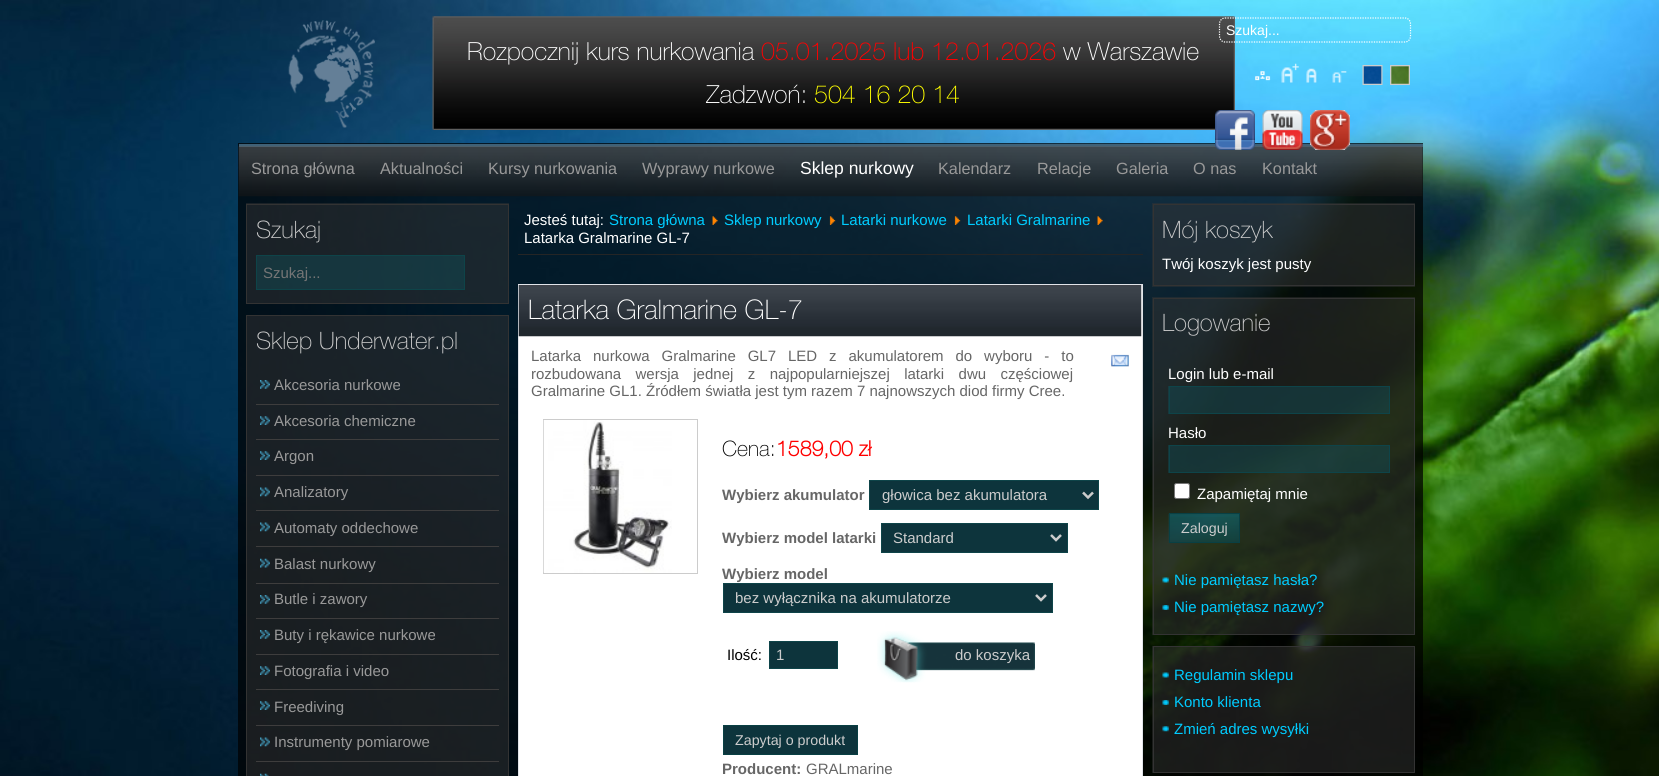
import math
import cairo

surface = cairo.ImageSurface(cairo.FORMAT_RGB24, 1659, 776)
ctx = cairo.Context(surface)
options = cairo.FontOptions()
options.set_hint_metrics(cairo.HINT_METRICS_OFF)
options.set_hint_style(cairo.HINT_STYLE_NONE)
ctx.set_font_options(options)
ctx.set_miter_limit(4)


def set_color(code):
    ctx.set_source_rgb(*(v / 255 for v in bytes.fromhex(code[-6:])))


def draw_text(x, y, s, family, size, color, bold=False, italic=False):
    ctx.select_font_face(family, cairo.FONT_SLANT_ITALIC if italic else cairo.FONT_SLANT_NORMAL, cairo.FONT_WEIGHT_BOLD if bold else cairo.FONT_WEIGHT_NORMAL)
    ctx.set_font_size(size)
    set_color(color)
    ctx.move_to(x, y)
    ctx.show_text(s)


def draw_spaced(x, y, s, letter, word):
    ctx.move_to(x, y)
    for ch in s:
        ctx.show_text(ch)
        ctx.rel_move_to(letter + word * (ch == ' '), 0)


def fill_rect(x, y, w, h, color):
    set_color(color)
    ctx.rectangle(x, y, w, h)
    ctx.fill()


def rounded_rect(x, y, w, h, r):
    ctx.new_sub_path()
    for i, (u, v) in enumerate([(x + w - r, y + h - r), (x + r, y + h - r), (x + r, y + r), (x + w - r, y + r)]):
        ctx.arc(u, v, r, i * math.pi / 2, (i + 1) * math.pi / 2)
    ctx.close_path()


def draw_image(path, x, y, w, h):
    ctx.save()
    ctx.set_source_surface(cairo.ImageSurface.create_from_png(path), x, y)
    ctx.rectangle(x, y, w, h)
    ctx.fill()
    ctx.restore()


set_color("#ffffff")
ctx.paint()
draw_image("assets/img1.png", 0, 0, 1659, 776)
draw_image("assets/img2.png", 288, 20, 87, 108)
draw_image("assets/img9.png", 432, 16, 803, 114)
ctx.new_path()
ctx.move_to(1225, 18)
ctx.line_to(1405, 18)
ctx.curve_to(1408, 18, 1410.5, 20.5, 1410.5, 24)
ctx.line_to(1410.5, 36)
ctx.curve_to(1410.5, 39.5, 1408, 42, 1405, 42)
ctx.line_to(1225, 42)
ctx.curve_to(1222, 42, 1219.5, 39.5, 1219.5, 36)
ctx.line_to(1219.5, 24)
ctx.curve_to(1219.5, 20.5, 1222, 18, 1225, 18)
ctx.close_path()
set_color("#ffffff")
ctx.set_line_width(1.2)
ctx.set_dash([1.25, 1.25])
ctx.stroke()
draw_text(1226, 35, "Szukaj...", "Liberation Sans", 14, "#ffffff")
draw_image("assets/img3.png", 1255, 71, 16, 10)
draw_image("assets/img4.png", 1281, 63, 18, 20)
draw_image("assets/img5.png", 1306, 68, 11, 15)
draw_image("assets/img6.png", 1332, 71, 15, 12)
draw_image("assets/img7.png", 1362, 65, 21, 20)
draw_image("assets/img8.png", 1390, 65, 20, 20)
draw_text(467, 60, "Rozpocznij kurs nurkowania", "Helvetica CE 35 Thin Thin", 25, "#ffffff")
draw_text(761, 60, "05.01.2025 lub 12.01.2026", "Helvetica CE 35 Thin Thin", 25, "#ff0000")
draw_text(1063, 60, "w Warszawie", "Helvetica CE 35 Thin Thin", 25, "#ffffff")
draw_text(706, 103, "Zadzwoń:", "Helvetica CE 35 Thin Thin", 25, "#ffffff")
draw_text(814, 103, "504 16 20 14", "Helvetica CE 35 Thin Thin", 25, "#ffff00")
ctx.set_source_rgba(0, 0, 0, 0.72)
ctx.rectangle(238, 143, 1185, 633)
ctx.fill()
fill_rect(239, 144, 1184, 3, "#406176")
draw_image("assets/img13.png", 238, 146, 1185, 51)
draw_image("assets/img10.png", 1215, 110, 40, 40)
draw_image("assets/img11.png", 1262, 110, 41, 40)
draw_image("assets/img12.png", 1310, 110, 40, 40)
draw_text(251, 174, "Strona główna", "Liberation Sans", 16.25, "#999999")
draw_text(380, 174, "Aktualności", "Liberation Sans", 16.25, "#999999")
draw_text(488, 174, "Kursy nurkowania", "Liberation Sans", 16.25, "#999999")
draw_text(642, 174, "Wyprawy nurkowe", "Liberation Sans", 16.25, "#999999")
draw_text(800, 174, "Sklep nurkowy", "Liberation Sans", 17.5, "#ffffff")
draw_text(938, 174, "Kalendarz", "Liberation Sans", 16.25, "#999999")
draw_text(1037, 174, "Relacje", "Liberation Sans", 16.25, "#999999")
draw_text(1116, 174, "Galeria", "Liberation Sans", 16.25, "#999999")
draw_text(1193, 174, "O nas", "Liberation Sans", 16.25, "#999999")
draw_text(1262, 174, "Kontakt", "Liberation Sans", 16.25, "#999999")
ctx.set_source_rgba(0.204, 0.204, 0.204, 0.48)
ctx.rectangle(246, 203, 263, 100)
ctx.fill()
ctx.rectangle(246.5, 204.5, 262, 99)
set_color("#333333")
ctx.set_line_width(1)
ctx.set_dash([])
ctx.stroke()
draw_text(256, 238, "Szukaj", "Helvetica CE 35 Thin Thin", 24, "#cccccc")
ctx.set_source_rgba(0.071, 0.29, 0.329, 0.5)
ctx.rectangle(256.5, 255.5, 208, 34)
ctx.fill_preserve()
set_color("#0e4449")
ctx.stroke()
draw_text(263, 278, "Szukaj...", "Liberation Sans", 15, "#757575")
ctx.set_source_rgba(0.204, 0.204, 0.204, 0.48)
ctx.rectangle(246.5, 315.5, 262, 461)
ctx.fill_preserve()
set_color("#333333")
ctx.stroke()
draw_text(256, 349, "Sklep Underwater.pl", "Helvetica CE 35 Thin Thin", 24, "#cccccc")
draw_image("assets/img14.png", 260, 380, 10, 9)
fill_rect(256, 404, 243, 1, "#3e3d3d")
draw_text(274, 390, "Akcesoria nurkowe", "Liberation Sans", 15, "#999999")
draw_image("assets/img15.png", 260, 416, 10, 9)
fill_rect(256, 439, 243, 1, "#3e3d3d")
draw_text(274, 426, "Akcesoria chemiczne", "Liberation Sans", 15, "#999999")
draw_image("assets/img16.png", 260, 451, 10, 9)
fill_rect(256, 475, 243, 1, "#3e3d3d")
draw_text(274, 461, "Argon", "Liberation Sans", 15, "#999999")
draw_image("assets/img17.png", 260, 487, 10, 10)
fill_rect(256, 510, 243, 1, "#3e3d3d")
draw_text(274, 497, "Analizatory", "Liberation Sans", 15, "#999999")
draw_image("assets/img18.png", 260, 522, 10, 10)
fill_rect(256, 546, 243, 1, "#3e3d3d")
draw_text(274, 533, "Automaty oddechowe", "Liberation Sans", 15, "#999999")
draw_image("assets/img19.png", 260, 558, 10, 10)
fill_rect(256, 583, 243, 1, "#3e3d3d")
draw_text(274, 569, "Balast nurkowy", "Liberation Sans", 15, "#999999")
draw_image("assets/img20.png", 260, 595, 10, 9)
fill_rect(256, 618, 243, 1, "#3e3d3d")
draw_text(274, 604, "Butle i zawory", "Liberation Sans", 15, "#999999")
draw_image("assets/img21.png", 260, 630, 10, 9)
fill_rect(256, 654, 243, 1, "#3e3d3d")
draw_text(274, 640, "Buty i rękawice nurkowe", "Liberation Sans", 15, "#999999")
draw_image("assets/img22.png", 260, 666, 10, 9)
fill_rect(256, 689, 243, 1, "#3e3d3d")
draw_text(274, 676, "Fotografia i video", "Liberation Sans", 15, "#999999")
draw_image("assets/img23.png", 260, 701, 10, 9)
fill_rect(256, 725, 243, 1, "#3e3d3d")
draw_text(274, 712, "Freediving", "Liberation Sans", 15, "#999999")
draw_image("assets/img24.png", 260, 737, 10, 10)
fill_rect(256, 761, 243, 1, "#3e3d3d")
draw_text(274, 747, "Instrumenty pomiarowe", "Liberation Sans", 15, "#999999")
draw_image("assets/img25.png", 260, 773, 9, 3)
fill_rect(518, 254, 625, 1, "#252525")
draw_text(524, 225, "Jesteś tutaj:", "Liberation Sans", 15, "#ffffff")
draw_text(609, 225, "Strona główna", "Liberation Sans", 15, "#00ccff")
draw_image("assets/img26.png", 712, 216, 6, 9)
draw_text(724, 225, "Sklep nurkowy", "Liberation Sans", 15, "#00ccff")
draw_image("assets/img27.png", 829, 216, 7, 9)
draw_text(841, 225, "Latarki nurkowe", "Liberation Sans", 15, "#00ccff")
draw_image("assets/img28.png", 954, 216, 7, 9)
draw_text(967, 225, "Latarki Gralmarine", "Liberation Sans", 15, "#00ccff")
draw_image("assets/img29.png", 1097, 216, 6, 9)
draw_text(524, 243, "Latarka Gralmarine GL-7", "Liberation Sans", 15, "#ffffff")
ctx.rectangle(518.5, 284.5, 624, 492)
ctx.fill_preserve()
set_color("#e1e4e9")
ctx.stroke()
draw_image("assets/img30.png", 518, 285, 624, 52)
draw_text(528, 319, "Latarka Gralmarine GL-7", "Helvetica CE 35 Thin Thin", 27, "#ffffff")
ctx.select_font_face("Liberation Sans")
ctx.set_font_size(15)
set_color("#666666")
draw_spaced(531, 361, "Latarka nurkowa Gralmarine GL7 LED z akumulatorem do wyboru - to", 0, 7.75)
draw_spaced(531, 379, "rozbudowana wersja jednej z najpopularniejszej latarki dwu częściowej", 0, 10.25)
draw_text(531, 396, "Gralmarine GL1. Źródłem światła jest tym razem 7 najnowszych diod firmy Cree.", "Liberation Sans", 15, "#666666")
draw_image("assets/img31.png", 1111, 354, 18, 13)
ctx.rectangle(543.5, 419.5, 154, 154)
set_color("#cccccc")
ctx.stroke()
draw_image("assets/img32.png", 543, 420, 129, 153)
draw_text(722, 456, "Cena:", "Helvetica CE 35 Thin Thin", 21.25, "#000000")
draw_text(776, 456, "1589,00 zł", "Helvetica CE 35 Thin", 21.25, "#ff0000", bold=True)
draw_text(722, 500, "Wybierz akumulator", "Liberation Sans", 15, "#666666", bold=True)
set_color("#0d343c")
ctx.rectangle(869.5, 480.5, 229, 29)
ctx.fill_preserve()
set_color("#0e4449")
ctx.stroke()
ctx.new_path()
ctx.move_to(1083, 492.5)
ctx.line_to(1088, 497.5)
ctx.line_to(1093, 492.5)
set_color("#cccccc")
ctx.set_line_width(2.5)
ctx.stroke()
draw_text(882, 500, "głowica bez akumulatora", "Liberation Sans", 15, "#cccccc")
draw_text(722, 543, "Wybierz model latarki", "Liberation Sans", 15, "#666666", bold=True)
set_color("#0d343c")
ctx.rectangle(881.5, 523.5, 186, 29)
ctx.fill_preserve()
set_color("#0e4449")
ctx.set_line_width(1)
ctx.stroke()
ctx.new_path()
ctx.move_to(1051, 535)
ctx.line_to(1056, 540)
ctx.line_to(1061, 535)
set_color("#cccccc")
ctx.set_line_width(2.5)
ctx.stroke()
draw_text(893, 543, "Standard", "Liberation Sans", 15, "#cccccc")
draw_text(722, 579, "Wybierz model", "Liberation Sans", 15, "#666666", bold=True)
set_color("#0d343c")
ctx.rectangle(723.5, 583.5, 329, 29)
ctx.fill_preserve()
set_color("#0e4449")
ctx.set_line_width(1)
ctx.stroke()
ctx.new_path()
ctx.move_to(1036, 595)
ctx.line_to(1041, 600)
ctx.line_to(1046, 595)
set_color("#cccccc")
ctx.set_line_width(2.5)
ctx.stroke()
draw_text(735, 603, "bez wyłącznika na akumulatorze", "Liberation Sans", 15, "#cccccc")
draw_text(727, 660, "Ilość:", "Liberation Sans", 15, "#000000")
set_color("#0d343c")
ctx.rectangle(769.5, 641.5, 68, 27)
ctx.fill_preserve()
set_color("#0e4449")
ctx.set_line_width(1)
ctx.stroke()
draw_text(776, 660, "1", "Liberation Sans", 15, "#cccccc")
draw_image("assets/img33.png", 877, 631, 158, 52)
draw_text(955, 660, "do koszyka", "Liberation Sans", 15, "#cccccc")
set_color("#0d343c")
ctx.rectangle(723.5, 725.5, 134, 29)
ctx.fill_preserve()
set_color("#094044")
ctx.stroke()
draw_text(735, 745, "Zapytaj o produkt", "Liberation Sans", 14.25, "#cccccc")
draw_text(722, 774, "Producent:", "Liberation Sans", 15, "#666666", bold=True)
draw_text(806, 774, "GRALmarine", "Liberation Sans", 15, "#666666")
ctx.set_source_rgba(0.204, 0.204, 0.204, 0.48)
ctx.rectangle(1152, 203, 263, 84)
ctx.fill()
ctx.rectangle(1153.5, 204.5, 261, 81)
set_color("#333333")
ctx.stroke()
draw_text(1162, 238, "Mój koszyk", "Helvetica CE 35 Thin Thin", 24, "#cccccc")
draw_text(1162, 269, "Twój koszyk jest pusty", "Liberation Sans", 15, "#ffffff")
ctx.set_source_rgba(0.204, 0.204, 0.204, 0.48)
ctx.rectangle(1152, 297, 263, 338)
ctx.fill()
ctx.rectangle(1153.5, 298.5, 261, 336)
set_color("#333333")
ctx.stroke()
draw_text(1162, 331, "Logowanie", "Helvetica CE 35 Thin Thin", 24, "#cccccc")
draw_text(1168, 379, "Login lub e-mail", "Liberation Sans", 15, "#ffffff")
ctx.set_source_rgba(0.071, 0.29, 0.329, 0.5)
ctx.rectangle(1168, 386, 221, 28)
ctx.fill()
ctx.rectangle(1169.5, 386.5, 220, 27)
set_color("#0e4449")
ctx.stroke()
draw_text(1168, 438, "Hasło", "Liberation Sans", 15, "#ffffff")
ctx.set_source_rgba(0.071, 0.29, 0.329, 0.5)
ctx.rectangle(1168, 445, 221, 28)
ctx.fill()
ctx.rectangle(1169.5, 445.5, 220, 27)
set_color("#0e4449")
ctx.stroke()
set_color("#ffffff")
rounded_rect(1174.5, 483.5, 15, 15, 2)
ctx.fill_preserve()
set_color("#767676")
ctx.stroke()
draw_text(1197, 499, "Zapamiętaj mnie", "Liberation Sans", 15, "#ffffff")
draw_image("assets/img34.png", 1168, 513, 71, 30)
ctx.rectangle(1169.5, 513.5, 70, 29)
set_color("#094044")
ctx.stroke()
draw_text(1181, 533, "Zaloguj", "Liberation Sans", 14.25, "#cccccc")
draw_image("assets/img35.png", 1162, 577, 7, 6)
draw_text(1174, 585, "Nie pamiętasz hasła?", "Liberation Sans", 15, "#00ccff")
draw_image("assets/img36.png", 1162, 605, 7, 5)
draw_text(1174, 612, "Nie pamiętasz nazwy?", "Liberation Sans", 15, "#00ccff")
ctx.set_source_rgba(0.204, 0.204, 0.204, 0.48)
ctx.rectangle(1152, 646, 262, 127)
ctx.fill()
ctx.rectangle(1153.5, 646.5, 261, 126)
set_color("#333333")
ctx.stroke()
draw_image("assets/img37.png", 1162, 672, 7, 6)
draw_text(1174, 680, "Regulamin sklepu", "Liberation Sans", 15, "#00ccff")
draw_image("assets/img38.png", 1162, 700, 7, 5)
draw_text(1174, 707, "Konto klienta", "Liberation Sans", 15, "#00ccff")
draw_image("assets/img39.png", 1162, 726, 7, 6)
draw_text(1174, 734, "Zmień adres wysyłki", "Liberation Sans", 15, "#00ccff")
surface.write_to_png("output.png")
